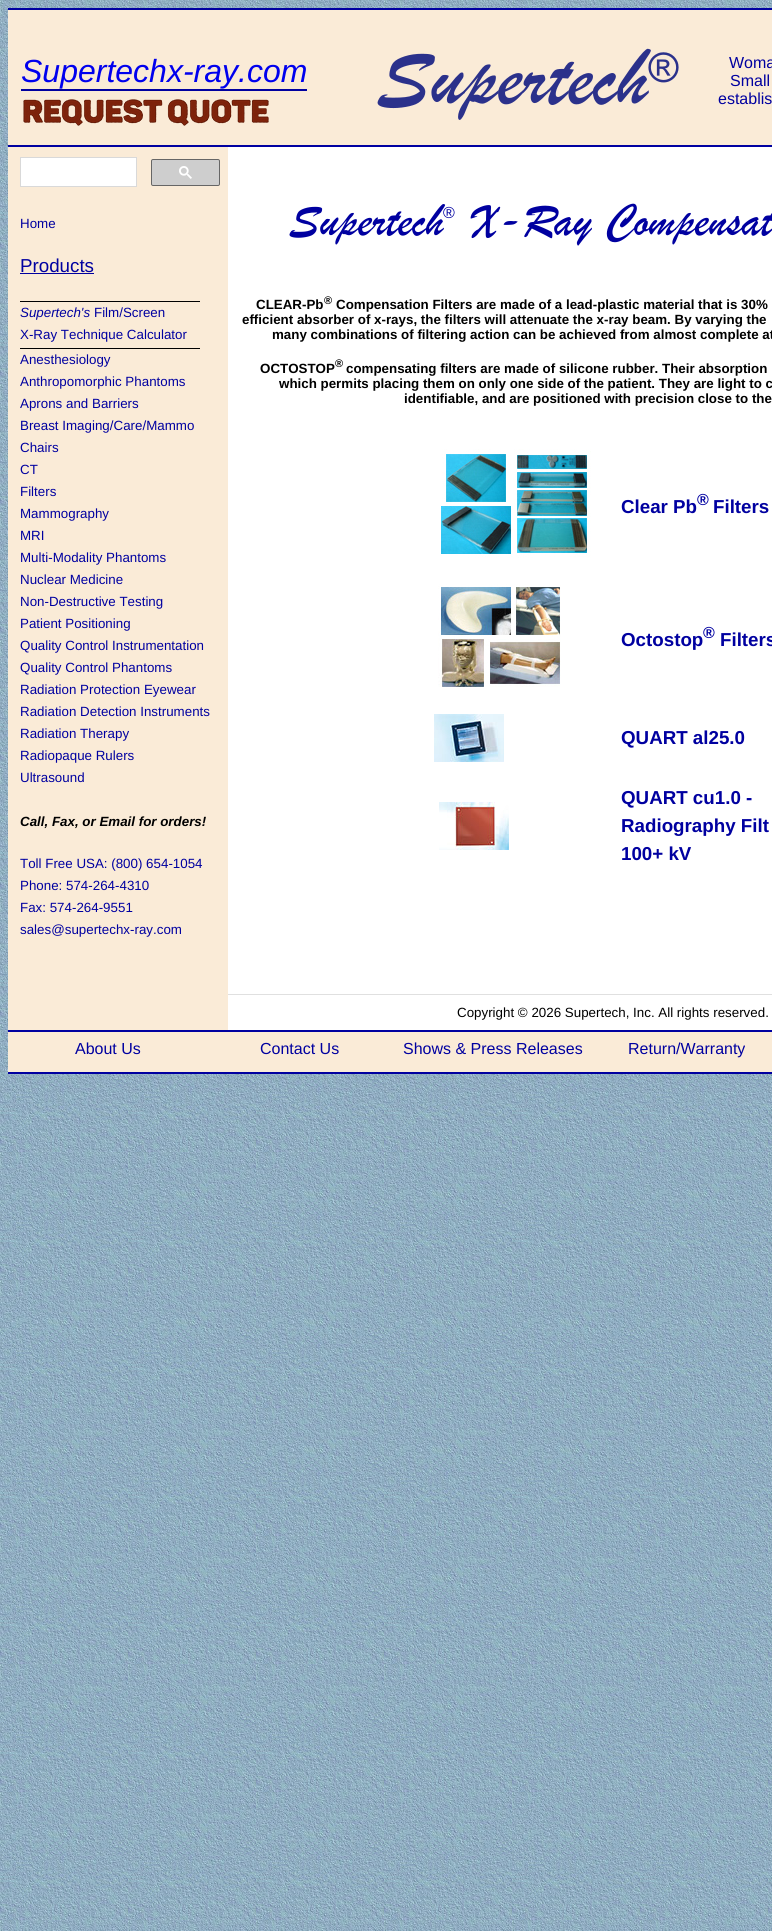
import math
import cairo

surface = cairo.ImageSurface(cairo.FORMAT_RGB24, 772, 1931)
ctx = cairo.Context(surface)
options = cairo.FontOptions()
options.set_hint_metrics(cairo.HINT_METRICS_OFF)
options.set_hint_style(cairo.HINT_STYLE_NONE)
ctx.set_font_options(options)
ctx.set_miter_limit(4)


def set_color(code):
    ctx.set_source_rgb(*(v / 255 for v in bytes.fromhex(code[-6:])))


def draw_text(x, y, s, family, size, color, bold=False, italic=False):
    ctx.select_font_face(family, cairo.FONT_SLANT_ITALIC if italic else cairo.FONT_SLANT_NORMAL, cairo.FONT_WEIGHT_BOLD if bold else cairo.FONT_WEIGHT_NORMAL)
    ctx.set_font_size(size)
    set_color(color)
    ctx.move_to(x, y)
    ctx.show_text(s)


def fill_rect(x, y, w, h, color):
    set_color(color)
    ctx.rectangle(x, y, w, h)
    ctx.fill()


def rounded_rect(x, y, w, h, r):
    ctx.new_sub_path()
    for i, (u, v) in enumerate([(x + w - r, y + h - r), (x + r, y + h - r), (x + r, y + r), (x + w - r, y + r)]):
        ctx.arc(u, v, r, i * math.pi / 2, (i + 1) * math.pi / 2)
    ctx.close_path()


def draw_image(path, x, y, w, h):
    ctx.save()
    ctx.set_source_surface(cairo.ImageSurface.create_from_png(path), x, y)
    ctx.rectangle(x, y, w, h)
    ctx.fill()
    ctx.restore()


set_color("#ffffff")
ctx.paint()
draw_image("assets/img1.png", 0, 0, 772, 1931)
fill_rect(8, 10, 764, 135, "#faebd7")
fill_rect(8, 8, 764, 2, "#0000a0")
fill_rect(8, 145, 764, 2, "#0000a0")
draw_text(21, 82, "Supertechx-ray.com", "Liberation Sans", 32, "#0000ee", italic=True)
fill_rect(21, 89, 286, 2, "#0000a0")
draw_image("assets/img2.png", 23, 99, 246, 27)
draw_image("assets/img3.png", 377, 48, 302, 72)
draw_text(729, 68, "Woma", "Liberation Sans", 16, "#0000a0")
draw_text(730, 86, "Small", "Liberation Sans", 16, "#0000a0")
draw_text(718, 104, "establis", "Liberation Sans", 16, "#0000a0")
fill_rect(8, 147, 220, 883, "#faebd7")
set_color("#ffffff")
ctx.rectangle(20.5, 157.5, 116, 29)
ctx.fill_preserve()
set_color("#d9d9d9")
ctx.set_line_width(1)
ctx.stroke()
set_color("#cecece")
rounded_rect(151.5, 159.5, 68, 26, 1.5)
ctx.fill_preserve()
set_color("#666666")
ctx.stroke()
draw_image("assets/img4.png", 179, 166, 13, 13)
draw_text(20, 228, "Home", "Liberation Sans", 13.35, "#0000a0")
draw_text(20, 272, "Products", "Liberation Sans", 18.75, "#0000a0")
fill_rect(20, 273, 74, 1, "#0000a0")
fill_rect(20, 301, 180, 1, "#000000")
draw_text(20, 317, "Supertech's", "Liberation Sans", 13.35, "#0000a0", italic=True)
draw_text(94, 317, "Film/Screen", "Liberation Sans", 13.35, "#0000a0")
draw_text(20, 339, "X-Ray Technique Calculator", "Liberation Sans", 13.35, "#0000a0")
fill_rect(20, 348, 180, 1, "#000000")
draw_text(20, 364, "Anesthesiology", "Liberation Sans", 13.35, "#0000a0")
draw_text(20, 386, "Anthropomorphic Phantoms", "Liberation Sans", 13.35, "#0000a0")
draw_text(20, 408, "Aprons and Barriers", "Liberation Sans", 13.35, "#0000a0")
draw_text(20, 430, "Breast Imaging/Care/Mammo", "Liberation Sans", 13.35, "#0000a0")
draw_text(20, 452, "Chairs", "Liberation Sans", 13.35, "#0000a0")
draw_text(20, 474, "CT", "Liberation Sans", 13.35, "#0000a0")
draw_text(20, 496, "Filters", "Liberation Sans", 13.35, "#0000a0")
draw_text(20, 518, "Mammography", "Liberation Sans", 13.35, "#0000a0")
draw_text(20, 540, "MRI", "Liberation Sans", 13.35, "#0000a0")
draw_text(20, 562, "Multi-Modality Phantoms", "Liberation Sans", 13.35, "#0000a0")
draw_text(20, 584, "Nuclear Medicine", "Liberation Sans", 13.35, "#0000a0")
draw_text(20, 606, "Non-Destructive Testing", "Liberation Sans", 13.35, "#0000a0")
draw_text(20, 628, "Patient Positioning", "Liberation Sans", 13.35, "#0000a0")
draw_text(20, 650, "Quality Control Instrumentation", "Liberation Sans", 13.35, "#0000a0")
draw_text(20, 672, "Quality Control Phantoms", "Liberation Sans", 13.35, "#0000a0")
draw_text(20, 694, "Radiation Protection Eyewear", "Liberation Sans", 13.35, "#0000a0")
draw_text(20, 716, "Radiation Detection Instruments", "Liberation Sans", 13.35, "#0000a0")
draw_text(20, 738, "Radiation Therapy", "Liberation Sans", 13.35, "#0000a0")
draw_text(20, 760, "Radiopaque Rulers", "Liberation Sans", 13.35, "#0000a0")
draw_text(20, 782, "Ultrasound", "Liberation Sans", 13.35, "#0000a0")
draw_text(20, 826, "Call, Fax, or Email for orders!", "Liberation Sans", 13.35, "#000000", bold=True, italic=True)
draw_text(20, 868, "Toll Free USA: (800) 654-1054", "Liberation Sans", 13.35, "#0000a0")
draw_text(20, 890, "Phone: 574-264-4310", "Liberation Sans", 13.35, "#0000a0")
draw_text(20, 912, "Fax: 574-264-9551", "Liberation Sans", 13.35, "#0000a0")
draw_text(20, 934, "sales@supertechx-ray.com", "Liberation Sans", 13.35, "#0000a0")
fill_rect(228, 147, 544, 847, "#ffffff")
draw_text(289, 235, "Supertech", "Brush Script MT", 48, "#0000a0", italic=True)
draw_text(443, 218, "®", "Liberation Sans", 16, "#0000a0")
draw_text(469, 235, "X-Ray Compensat", "Brush Script MT", 48, "#0000a0", italic=True)
draw_text(256, 309, "CLEAR-Pb", "Liberation Sans", 13.35, "#000000", bold=True)
draw_text(324, 304, "®", "Liberation Sans", 11, "#000000", bold=True)
draw_text(336, 309, "Compensation Filters are made of a lead-plastic material that is 30%", "Liberation Sans", 13.35, "#000000", bold=True)
draw_text(242, 324, "efficient absorber of x-rays, the filters will attenuate the x-ray beam. By varying the", "Liberation Sans", 13.35, "#000000", bold=True)
draw_text(272, 339, "many combinations of filtering action can be achieved from almost complete at", "Liberation Sans", 13.35, "#000000", bold=True)
draw_text(260, 373, "OCTOSTOP", "Liberation Sans", 13.35, "#000000", bold=True)
draw_text(335, 367, "®", "Liberation Sans", 11, "#000000", bold=True)
draw_text(346, 373, "compensating filters are made of silicone rubber. Their absorption", "Liberation Sans", 13.35, "#000000", bold=True)
draw_text(279, 388, "which permits placing them on only one side of the patient. They are light to c", "Liberation Sans", 13.35, "#000000", bold=True)
draw_text(404, 403, "identifiable, and are positioned with precision close to the", "Liberation Sans", 13.35, "#000000", bold=True)
draw_image("assets/img5.png", 441, 449, 150, 109)
draw_text(621, 513, "Clear Pb", "Liberation Sans", 18.75, "#0000a0", bold=True)
draw_text(697, 505, "®", "Liberation Sans", 16, "#0000a0", bold=True)
draw_text(713, 513, "Filters", "Liberation Sans", 18.75, "#0000a0", bold=True)
draw_image("assets/img6.png", 438, 584, 123, 103)
draw_text(621, 646, "Octostop", "Liberation Sans", 18.75, "#0000a0", bold=True)
draw_text(703, 638, "®", "Liberation Sans", 16, "#0000a0", bold=True)
draw_text(720, 646, "Filters", "Liberation Sans", 18.75, "#0000a0", bold=True)
draw_image("assets/img7.png", 434, 714, 70, 48)
draw_text(621, 744, "QUART al25.0", "Liberation Sans", 18.75, "#0000a0", bold=True)
draw_image("assets/img8.png", 439, 802, 70, 48)
draw_text(621, 804, "QUART cu1.0 -", "Liberation Sans", 18.75, "#0000a0", bold=True)
draw_text(621, 832, "Radiography Filt", "Liberation Sans", 18.75, "#0000a0", bold=True)
draw_text(621, 860, "100+ kV", "Liberation Sans", 18.75, "#0000a0", bold=True)
fill_rect(228, 995, 544, 35, "#ffffff")
fill_rect(228, 994, 544, 1, "#e0e0e0")
draw_text(457, 1017, "Copyright © 2026 Supertech, Inc. All rights reserved.", "Liberation Sans", 13.35, "#000000")
fill_rect(8, 1032, 764, 40, "#faebd7")
fill_rect(8, 1030, 764, 2, "#0000a0")
fill_rect(8, 1072, 764, 2, "#0000a0")
draw_text(75, 1054, "About Us", "Liberation Sans", 16, "#0000a0")
draw_text(260, 1054, "Contact Us", "Liberation Sans", 16, "#0000a0")
draw_text(403, 1054, "Shows & Press Releases", "Liberation Sans", 16, "#0000a0")
draw_text(628, 1054, "Return/Warranty", "Liberation Sans", 16, "#0000a0")
surface.write_to_png("output.png")
